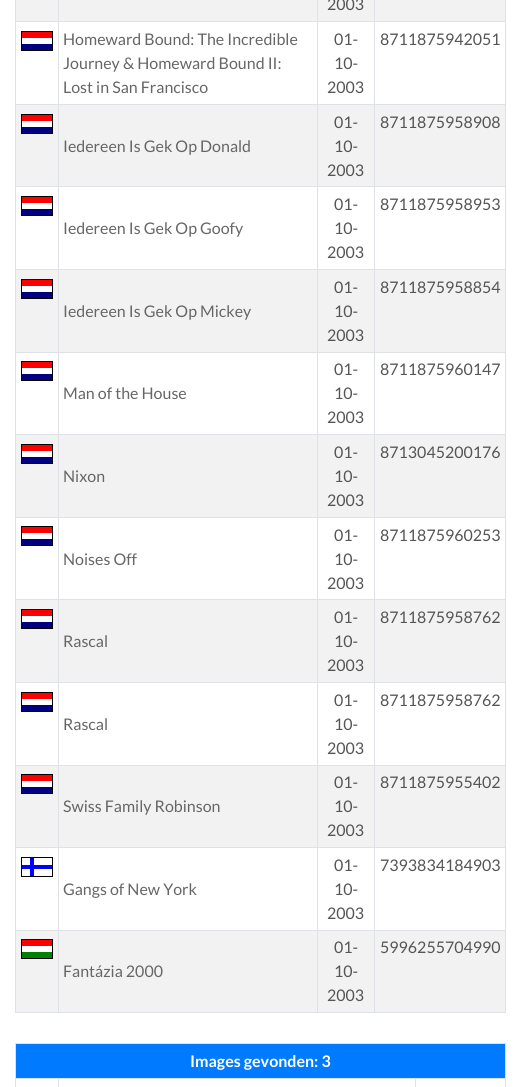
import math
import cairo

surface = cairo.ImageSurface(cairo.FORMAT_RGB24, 521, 1087)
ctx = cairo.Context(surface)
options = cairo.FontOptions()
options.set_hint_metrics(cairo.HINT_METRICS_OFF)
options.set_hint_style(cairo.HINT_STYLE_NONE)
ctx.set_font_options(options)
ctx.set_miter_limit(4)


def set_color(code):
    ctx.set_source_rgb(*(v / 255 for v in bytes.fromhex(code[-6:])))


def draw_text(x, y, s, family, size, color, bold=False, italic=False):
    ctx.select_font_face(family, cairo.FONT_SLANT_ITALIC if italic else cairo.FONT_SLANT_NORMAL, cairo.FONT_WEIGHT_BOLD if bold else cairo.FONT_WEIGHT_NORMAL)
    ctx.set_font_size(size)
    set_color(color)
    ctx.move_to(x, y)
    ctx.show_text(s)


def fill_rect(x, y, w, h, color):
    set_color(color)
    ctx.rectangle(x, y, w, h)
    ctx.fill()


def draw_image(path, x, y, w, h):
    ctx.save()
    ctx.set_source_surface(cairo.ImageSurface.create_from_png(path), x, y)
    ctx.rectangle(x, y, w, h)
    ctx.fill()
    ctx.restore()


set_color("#ffffff")
ctx.paint()
fill_rect(505, 0, 1, 1013, "#dee2e6")
fill_rect(15, 1012, 491, 1, "#dee2e6")
fill_rect(15, 0, 1, 1013, "#dee2e6")
fill_rect(16, 0, 489, 21, "#f2f2f2")
fill_rect(374, 21, 132, 1, "#dee2e6")
fill_rect(374, 104, 132, 1, "#dee2e6")
fill_rect(16, 105, 489, 81, "#f2f2f2")
fill_rect(374, 186, 132, 1, "#dee2e6")
fill_rect(374, 269, 132, 1, "#dee2e6")
fill_rect(16, 270, 489, 82, "#f2f2f2")
fill_rect(374, 352, 132, 1, "#dee2e6")
fill_rect(374, 434, 132, 1, "#dee2e6")
fill_rect(16, 435, 489, 82, "#f2f2f2")
fill_rect(374, 517, 132, 1, "#dee2e6")
fill_rect(374, 599, 132, 1, "#dee2e6")
fill_rect(16, 600, 489, 82, "#f2f2f2")
fill_rect(374, 682, 132, 1, "#dee2e6")
fill_rect(374, 765, 132, 1, "#dee2e6")
fill_rect(16, 766, 489, 81, "#f2f2f2")
fill_rect(374, 847, 132, 1, "#dee2e6")
fill_rect(374, 930, 132, 1, "#dee2e6")
fill_rect(16, 931, 489, 81, "#f2f2f2")
fill_rect(374, 930, 1, 83, "#dee2e6")
fill_rect(317, 930, 58, 1, "#dee2e6")
fill_rect(374, 847, 1, 84, "#dee2e6")
fill_rect(317, 847, 58, 1, "#dee2e6")
fill_rect(374, 765, 1, 83, "#dee2e6")
fill_rect(317, 765, 58, 1, "#dee2e6")
fill_rect(374, 682, 1, 84, "#dee2e6")
fill_rect(317, 682, 58, 1, "#dee2e6")
fill_rect(374, 599, 1, 84, "#dee2e6")
fill_rect(317, 599, 58, 1, "#dee2e6")
fill_rect(374, 517, 1, 83, "#dee2e6")
fill_rect(317, 517, 58, 1, "#dee2e6")
fill_rect(374, 434, 1, 84, "#dee2e6")
fill_rect(317, 434, 58, 1, "#dee2e6")
fill_rect(374, 352, 1, 83, "#dee2e6")
fill_rect(317, 352, 58, 1, "#dee2e6")
fill_rect(374, 269, 1, 84, "#dee2e6")
fill_rect(317, 269, 58, 1, "#dee2e6")
fill_rect(374, 186, 1, 84, "#dee2e6")
fill_rect(317, 186, 58, 1, "#dee2e6")
fill_rect(374, 104, 1, 83, "#dee2e6")
fill_rect(317, 104, 58, 1, "#dee2e6")
fill_rect(374, 21, 1, 84, "#dee2e6")
fill_rect(317, 21, 58, 1, "#dee2e6")
fill_rect(317, 930, 1, 83, "#dee2e6")
fill_rect(58, 930, 260, 1, "#dee2e6")
fill_rect(317, 847, 1, 84, "#dee2e6")
fill_rect(58, 847, 260, 1, "#dee2e6")
fill_rect(317, 765, 1, 83, "#dee2e6")
fill_rect(58, 765, 260, 1, "#dee2e6")
fill_rect(317, 682, 1, 84, "#dee2e6")
fill_rect(58, 682, 260, 1, "#dee2e6")
fill_rect(317, 599, 1, 84, "#dee2e6")
fill_rect(58, 599, 260, 1, "#dee2e6")
fill_rect(317, 517, 1, 83, "#dee2e6")
fill_rect(58, 517, 260, 1, "#dee2e6")
fill_rect(317, 434, 1, 84, "#dee2e6")
fill_rect(58, 434, 260, 1, "#dee2e6")
fill_rect(317, 352, 1, 83, "#dee2e6")
fill_rect(58, 352, 260, 1, "#dee2e6")
fill_rect(317, 269, 1, 84, "#dee2e6")
fill_rect(58, 269, 260, 1, "#dee2e6")
fill_rect(317, 186, 1, 84, "#dee2e6")
fill_rect(58, 186, 260, 1, "#dee2e6")
fill_rect(317, 104, 1, 83, "#dee2e6")
fill_rect(58, 104, 260, 1, "#dee2e6")
fill_rect(317, 21, 1, 84, "#dee2e6")
fill_rect(58, 21, 260, 1, "#dee2e6")
fill_rect(58, 930, 1, 83, "#dee2e6")
fill_rect(15, 930, 44, 1, "#dee2e6")
fill_rect(58, 847, 1, 84, "#dee2e6")
fill_rect(15, 847, 44, 1, "#dee2e6")
fill_rect(58, 765, 1, 83, "#dee2e6")
fill_rect(15, 765, 44, 1, "#dee2e6")
fill_rect(58, 682, 1, 84, "#dee2e6")
fill_rect(15, 682, 44, 1, "#dee2e6")
fill_rect(58, 599, 1, 84, "#dee2e6")
fill_rect(15, 599, 44, 1, "#dee2e6")
fill_rect(58, 517, 1, 83, "#dee2e6")
fill_rect(15, 517, 44, 1, "#dee2e6")
fill_rect(58, 434, 1, 84, "#dee2e6")
fill_rect(15, 434, 44, 1, "#dee2e6")
fill_rect(58, 352, 1, 83, "#dee2e6")
fill_rect(15, 352, 44, 1, "#dee2e6")
fill_rect(58, 269, 1, 84, "#dee2e6")
fill_rect(15, 269, 44, 1, "#dee2e6")
fill_rect(58, 186, 1, 84, "#dee2e6")
fill_rect(15, 186, 44, 1, "#dee2e6")
fill_rect(58, 104, 1, 83, "#dee2e6")
fill_rect(15, 104, 44, 1, "#dee2e6")
fill_rect(58, 21, 1, 84, "#dee2e6")
fill_rect(15, 21, 44, 1, "#dee2e6")
fill_rect(58, 0, 1, 22, "#dee2e6")
fill_rect(317, 0, 1, 22, "#dee2e6")
draw_text(327, 10, "2003", "Lato", 16, "#555555")
fill_rect(374, 0, 1, 22, "#dee2e6")
draw_image("assets/img1.png", 21, 31, 32, 20)
draw_text(63, 45, "Homeward Bound: The Incredible", "Lato", 16, "#666666")
draw_text(63, 69, "Journey & Homeward Bound II:", "Lato", 16, "#666666")
draw_text(63, 93, "Lost in San Francisco", "Lato", 16, "#666666")
draw_text(334, 45, "01-", "Lato", 16, "#555555")
draw_text(334, 69, "10-", "Lato", 16, "#555555")
draw_text(327, 93, "2003", "Lato", 16, "#555555")
draw_text(380, 45, "8711875942051", "Lato", 16, "#555555")
draw_image("assets/img1.png", 21, 114, 32, 20)
draw_text(334, 128, "01-", "Lato", 16, "#555555")
draw_text(334, 152, "10-", "Lato", 16, "#555555")
draw_text(327, 176, "2003", "Lato", 16, "#555555")
draw_text(380, 128, "8711875958908", "Lato", 16, "#555555")
draw_text(63, 152, "Iedereen Is Gek Op Donald", "Lato", 16, "#666666")
draw_image("assets/img1.png", 21, 196, 32, 20)
draw_text(334, 210, "01-", "Lato", 16, "#555555")
draw_text(334, 234, "10-", "Lato", 16, "#555555")
draw_text(327, 258, "2003", "Lato", 16, "#555555")
draw_text(380, 210, "8711875958953", "Lato", 16, "#555555")
draw_text(63, 234, "Iedereen Is Gek Op Goofy", "Lato", 16, "#666666")
draw_image("assets/img1.png", 21, 279, 32, 20)
draw_text(334, 293, "01-", "Lato", 16, "#555555")
draw_text(334, 317, "10-", "Lato", 16, "#555555")
draw_text(327, 341, "2003", "Lato", 16, "#555555")
draw_text(380, 293, "8711875958854", "Lato", 16, "#555555")
draw_text(63, 317, "Iedereen Is Gek Op Mickey", "Lato", 16, "#666666")
draw_image("assets/img1.png", 21, 361, 32, 20)
draw_text(334, 375, "01-", "Lato", 16, "#555555")
draw_text(334, 399, "10-", "Lato", 16, "#555555")
draw_text(327, 423, "2003", "Lato", 16, "#555555")
draw_text(380, 375, "8711875960147", "Lato", 16, "#555555")
draw_text(63, 399, "Man of the House", "Lato", 16, "#666666")
draw_image("assets/img1.png", 21, 444, 32, 20)
draw_text(334, 458, "01-", "Lato", 16, "#555555")
draw_text(334, 482, "10-", "Lato", 16, "#555555")
draw_text(327, 506, "2003", "Lato", 16, "#555555")
draw_text(380, 458, "8713045200176", "Lato", 16, "#555555")
draw_text(63, 482, "Nixon", "Lato", 16, "#666666")
draw_image("assets/img1.png", 21, 526, 32, 20)
draw_text(334, 541, "01-", "Lato", 16, "#555555")
draw_text(334, 565, "10-", "Lato", 16, "#555555")
draw_text(327, 589, "2003", "Lato", 16, "#555555")
draw_text(380, 541, "8711875960253", "Lato", 16, "#555555")
draw_text(63, 565, "Noises Off", "Lato", 16, "#666666")
draw_image("assets/img1.png", 21, 609, 32, 20)
draw_text(334, 623, "01-", "Lato", 16, "#555555")
draw_text(334, 647, "10-", "Lato", 16, "#555555")
draw_text(327, 671, "2003", "Lato", 16, "#555555")
draw_text(380, 623, "8711875958762", "Lato", 16, "#555555")
draw_text(63, 647, "Rascal", "Lato", 16, "#666666")
draw_image("assets/img1.png", 21, 692, 32, 20)
draw_text(334, 706, "01-", "Lato", 16, "#555555")
draw_text(334, 730, "10-", "Lato", 16, "#555555")
draw_text(327, 754, "2003", "Lato", 16, "#555555")
draw_text(380, 706, "8711875958762", "Lato", 16, "#555555")
draw_text(63, 730, "Rascal", "Lato", 16, "#666666")
draw_image("assets/img1.png", 21, 774, 32, 20)
draw_text(334, 788, "01-", "Lato", 16, "#555555")
draw_text(334, 812, "10-", "Lato", 16, "#555555")
draw_text(327, 836, "2003", "Lato", 16, "#555555")
draw_text(380, 788, "8711875955402", "Lato", 16, "#555555")
draw_text(63, 812, "Swiss Family Robinson", "Lato", 16, "#666666")
draw_image("assets/img2.png", 21, 857, 32, 20)
draw_text(334, 871, "01-", "Lato", 16, "#555555")
draw_text(334, 895, "10-", "Lato", 16, "#555555")
draw_text(327, 919, "2003", "Lato", 16, "#555555")
draw_text(380, 871, "7393834184903", "Lato", 16, "#555555")
draw_text(63, 895, "Gangs of New York", "Lato", 16, "#666666")
draw_image("assets/img3.png", 21, 939, 32, 20)
draw_text(334, 953, "01-", "Lato", 16, "#555555")
draw_text(334, 977, "10-", "Lato", 16, "#555555")
draw_text(327, 1001, "2003", "Lato", 16, "#555555")
draw_text(380, 953, "5996255704990", "Lato", 16, "#555555")
draw_text(63, 977, "Fantázia 2000", "Lato", 16, "#666666")
fill_rect(15, 1043, 491, 1, "#dee2e6")
fill_rect(505, 1043, 1, 44, "#dee2e6")
fill_rect(15, 1043, 1, 44, "#dee2e6")
fill_rect(16, 1044, 489, 34, "#007bff")
draw_text(190, 1067, "Images gevonden: 3", "Lato", 16, "#ffffff", bold=True)
fill_rect(415, 1078, 91, 1, "#dee2e6")
fill_rect(415, 1078, 1, 9, "#dee2e6")
fill_rect(58, 1078, 358, 1, "#dee2e6")
fill_rect(58, 1078, 1, 9, "#dee2e6")
fill_rect(15, 1078, 44, 1, "#dee2e6")
surface.write_to_png("output.png")
